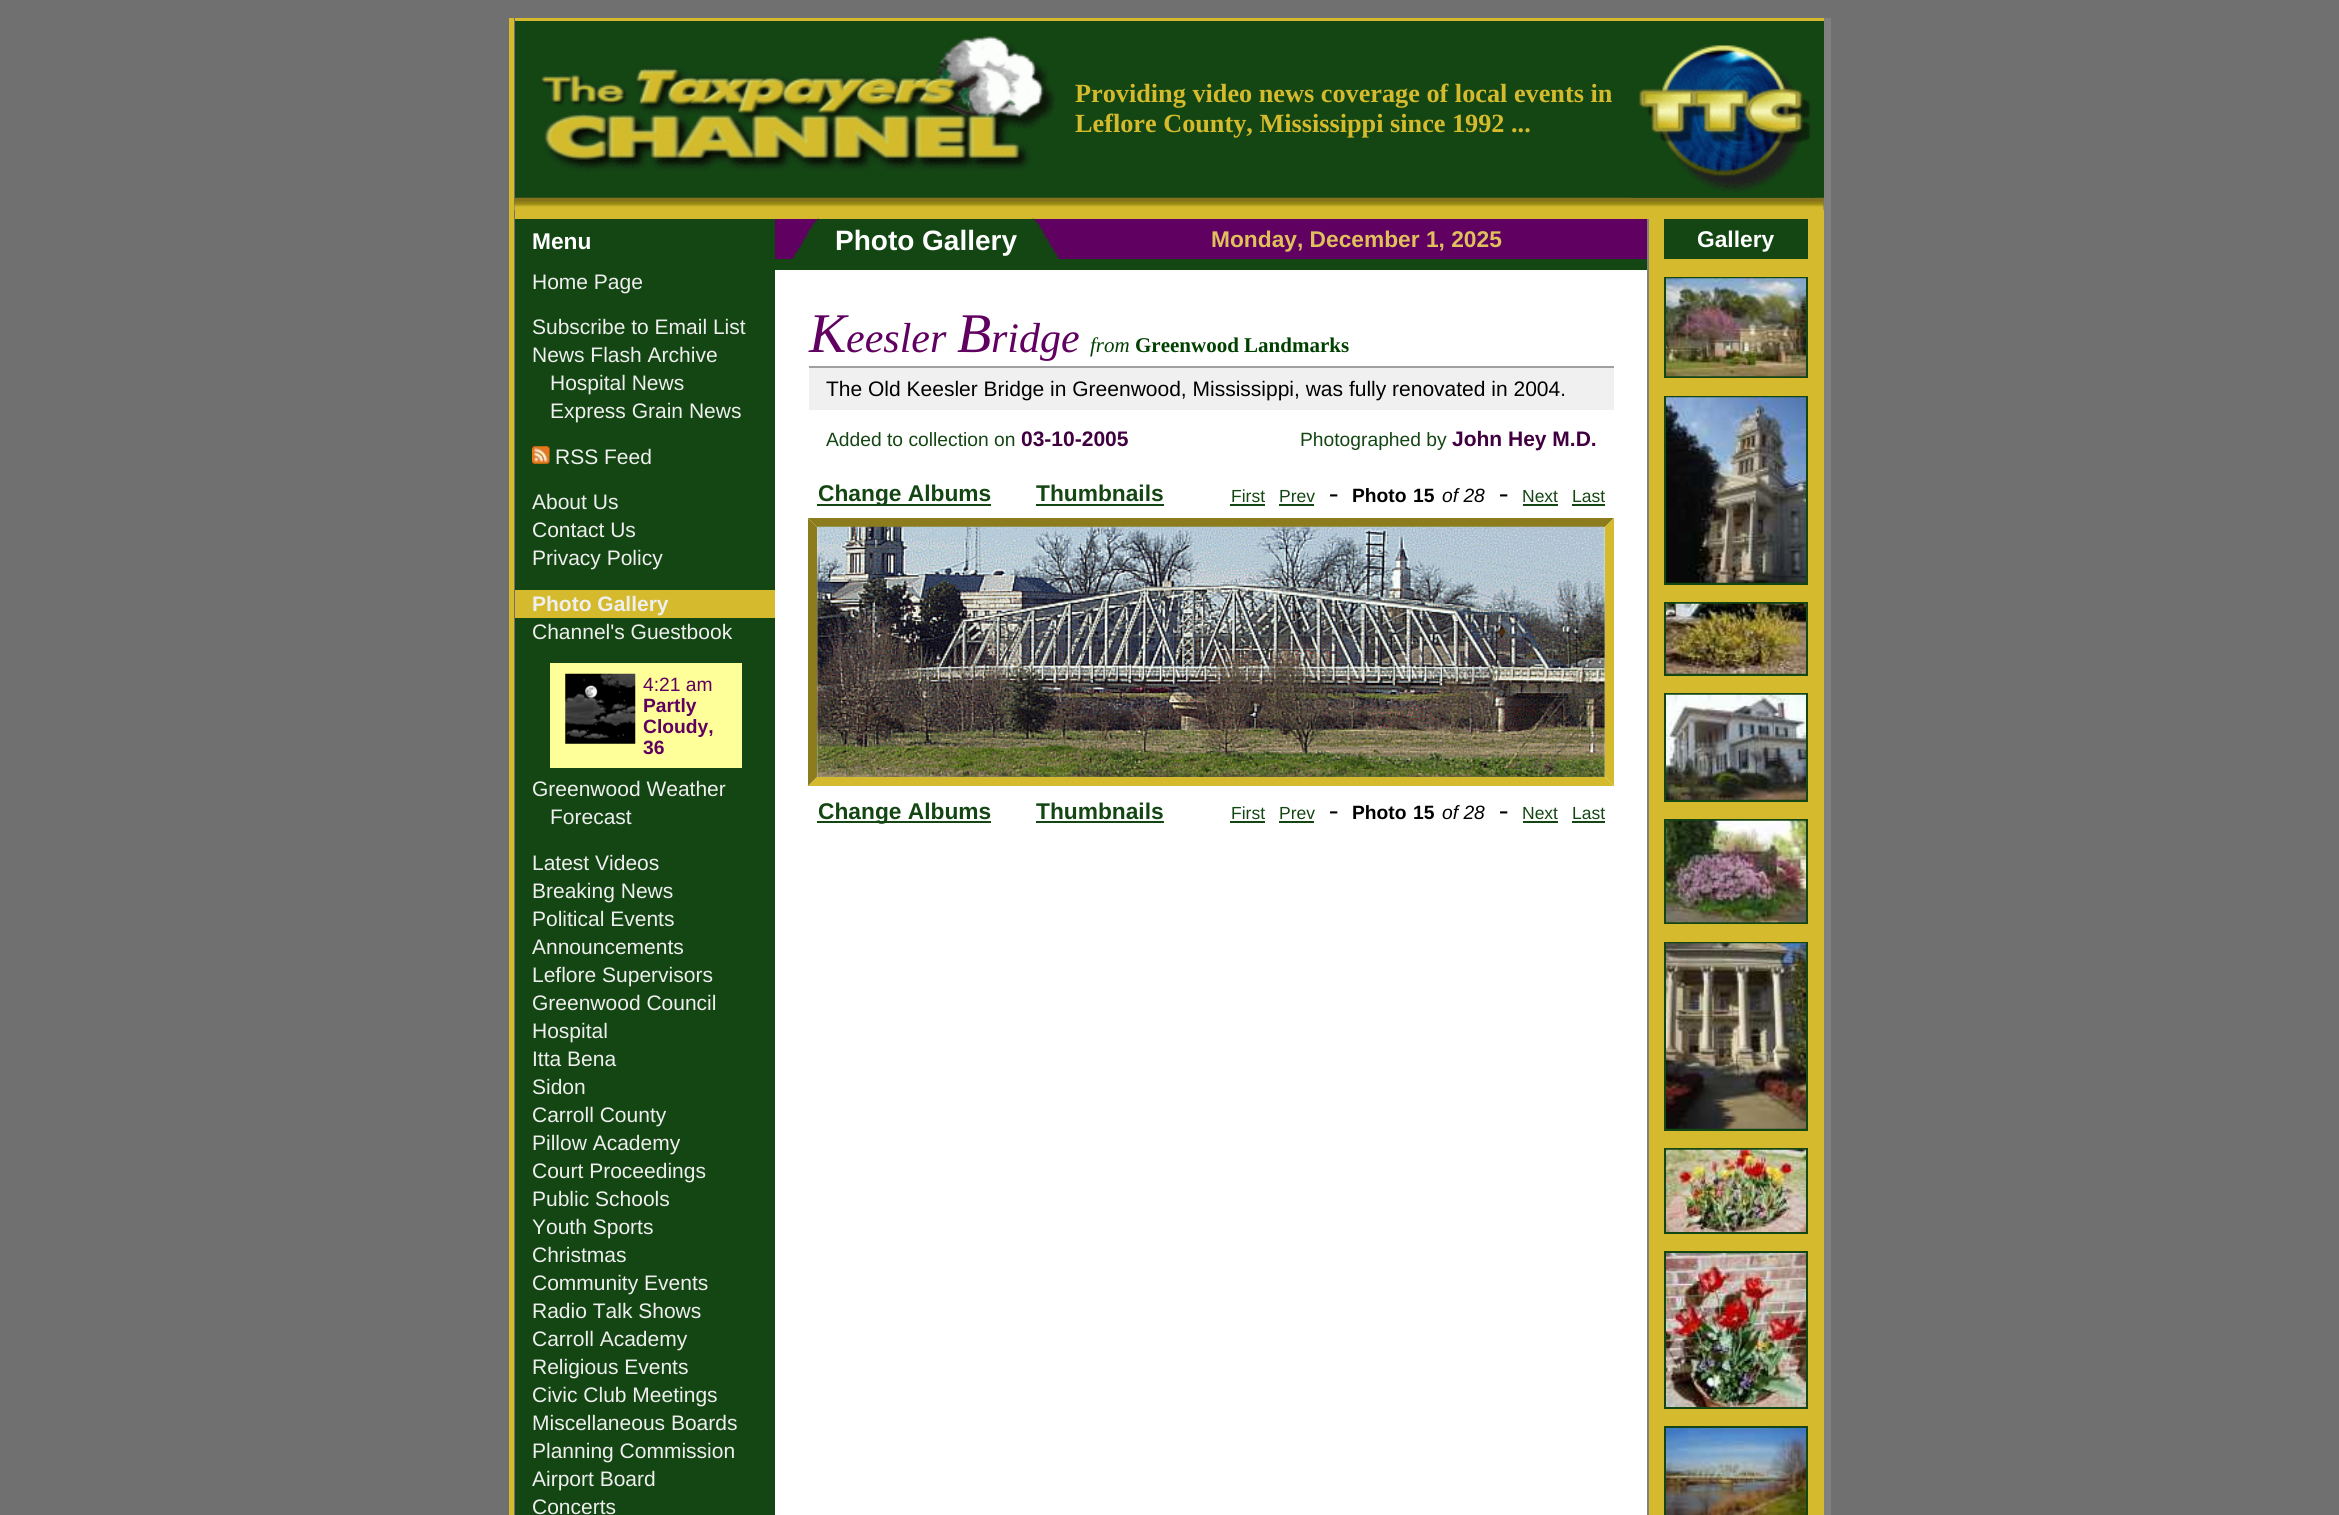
import math
import cairo

surface = cairo.ImageSurface(cairo.FORMAT_RGB24, 2339, 1515)
ctx = cairo.Context(surface)
options = cairo.FontOptions()
options.set_hint_metrics(cairo.HINT_METRICS_OFF)
options.set_hint_style(cairo.HINT_STYLE_NONE)
ctx.set_font_options(options)
ctx.set_miter_limit(4)


def set_color(code):
    ctx.set_source_rgb(*(v / 255 for v in bytes.fromhex(code[-6:])))


def draw_text(x, y, s, family, size, color, bold=False, italic=False):
    ctx.select_font_face(family, cairo.FONT_SLANT_ITALIC if italic else cairo.FONT_SLANT_NORMAL, cairo.FONT_WEIGHT_BOLD if bold else cairo.FONT_WEIGHT_NORMAL)
    ctx.set_font_size(size)
    set_color(color)
    ctx.move_to(x, y)
    ctx.show_text(s)


def fill_rect(x, y, w, h, color):
    set_color(color)
    ctx.rectangle(x, y, w, h)
    ctx.fill()


def draw_image(path, x, y, w, h):
    ctx.save()
    ctx.set_source_surface(cairo.ImageSurface.create_from_png(path), x, y)
    ctx.rectangle(x, y, w, h)
    ctx.fill()
    ctx.restore()


set_color("#707070")
ctx.paint()
fill_rect(509, 18, 5, 1497, "#d4ba2c")
fill_rect(515, 18, 1309, 3, "#d4ba2c")
fill_rect(1824, 18, 7, 1497, "#808080")
fill_rect(515, 21, 1309, 177, "#144614")
draw_image("assets/img1.png", 541, 36, 516, 135)
draw_text(1075, 102, "Providing video news coverage of local events in", "Liberation Serif", 26.25, "#d4ba2c", bold=True)
draw_text(1075, 132, "Leflore County, Mississippi since 1992 ...", "Liberation Serif", 26.25, "#d4ba2c", bold=True)
draw_image("assets/img3.png", 514, 197, 1310, 13)
draw_image("assets/img2.png", 1631, 45, 184, 153)
fill_rect(515, 210, 1309, 9, "#d4ba2c")
fill_rect(515, 219, 260, 1296, "#144614")
draw_text(532, 249, "Menu", "Liberation Sans", 22.75, "#ffffff", bold=True)
draw_text(532, 289, "Home Page", "Liberation Sans", 21, "#efefef")
draw_text(532, 334, "Subscribe to Email List", "Liberation Sans", 21, "#efefef")
draw_text(532, 362, "News Flash Archive", "Liberation Sans", 21, "#efefef")
draw_text(550, 390, "Hospital News", "Liberation Sans", 21, "#efefef")
draw_text(550, 418, "Express Grain News", "Liberation Sans", 21, "#efefef")
draw_image("assets/img4.png", 532, 446, 18, 18)
draw_text(555, 464, "RSS Feed", "Liberation Sans", 21, "#efefef")
draw_text(532, 509, "About Us", "Liberation Sans", 21, "#efefef")
draw_text(532, 537, "Contact Us", "Liberation Sans", 21, "#efefef")
draw_text(532, 565, "Privacy Policy", "Liberation Sans", 21, "#efefef")
fill_rect(515, 590, 260, 28, "#d4ba2c")
draw_text(532, 611, "Photo Gallery", "Liberation Sans", 21, "#efefef", bold=True)
draw_text(532, 639, "Channel's Guestbook", "Liberation Sans", 21, "#efefef")
fill_rect(550, 663, 192, 105, "#ffff99")
draw_image("assets/img5.png", 565, 673, 71, 71)
draw_text(643, 691, "4:21 am", "Liberation Sans", 19.25, "#600060")
draw_text(643, 712, "Partly", "Liberation Sans", 19.25, "#600060", bold=True)
draw_text(643, 733, "Cloudy,", "Liberation Sans", 19.25, "#600060", bold=True)
draw_text(643, 754, "36", "Liberation Sans", 19.25, "#600060", bold=True)
draw_text(532, 796, "Greenwood Weather", "Liberation Sans", 21, "#efefef")
draw_text(550, 824, "Forecast", "Liberation Sans", 21, "#efefef")
draw_text(532, 870, "Latest Videos", "Liberation Sans", 21, "#efefef")
draw_text(532, 898, "Breaking News", "Liberation Sans", 21, "#efefef")
draw_text(532, 926, "Political Events", "Liberation Sans", 21, "#efefef")
draw_text(532, 954, "Announcements", "Liberation Sans", 21, "#efefef")
draw_text(532, 982, "Leflore Supervisors", "Liberation Sans", 21, "#efefef")
draw_text(532, 1010, "Greenwood Council", "Liberation Sans", 21, "#efefef")
draw_text(532, 1038, "Hospital", "Liberation Sans", 21, "#efefef")
draw_text(532, 1066, "Itta Bena", "Liberation Sans", 21, "#efefef")
draw_text(532, 1094, "Sidon", "Liberation Sans", 21, "#efefef")
draw_text(532, 1122, "Carroll County", "Liberation Sans", 21, "#efefef")
draw_text(532, 1150, "Pillow Academy", "Liberation Sans", 21, "#efefef")
draw_text(532, 1178, "Court Proceedings", "Liberation Sans", 21, "#efefef")
draw_text(532, 1206, "Public Schools", "Liberation Sans", 21, "#efefef")
draw_text(532, 1234, "Youth Sports", "Liberation Sans", 21, "#efefef")
draw_text(532, 1262, "Christmas", "Liberation Sans", 21, "#efefef")
draw_text(532, 1290, "Community Events", "Liberation Sans", 21, "#efefef")
draw_text(532, 1318, "Radio Talk Shows", "Liberation Sans", 21, "#efefef")
draw_text(532, 1346, "Carroll Academy", "Liberation Sans", 21, "#efefef")
draw_text(532, 1374, "Religious Events", "Liberation Sans", 21, "#efefef")
draw_text(532, 1402, "Civic Club Meetings", "Liberation Sans", 21, "#efefef")
draw_text(532, 1430, "Miscellaneous Boards", "Liberation Sans", 21, "#efefef")
draw_text(532, 1458, "Planning Commission", "Liberation Sans", 21, "#efefef")
draw_text(532, 1486, "Airport Board", "Liberation Sans", 21, "#efefef")
draw_text(532, 1514, "Concerts", "Liberation Sans", 21, "#efefef")
fill_rect(775, 270, 872, 1245, "#ffffff")
fill_rect(775, 219, 872, 51, "#144614")
fill_rect(775, 219, 18, 40, "#600060")
fill_rect(793, 219, 25, 39, "#600060")
draw_image("assets/img6.png", 792, 218, 27, 41)
draw_text(835, 250, "Photo Gallery", "Liberation Sans", 28, "#ffffff", bold=True)
fill_rect(1033, 219, 614, 40, "#600060")
draw_image("assets/img7.png", 1032, 218, 27, 41)
draw_text(1211, 247, "Monday, December 1, 2025", "Liberation Sans", 22.75, "#e0c05c", bold=True)
draw_text(809, 352, "K", "Liberation Serif", 56, "#600060", italic=True)
draw_text(846, 352, "eesler", "Liberation Serif", 42, "#600060", italic=True)
draw_text(957, 352, "B", "Liberation Serif", 56, "#600060", italic=True)
draw_text(991, 352, "ridge", "Liberation Serif", 42, "#600060", italic=True)
draw_text(1090, 352, "from", "Liberation Serif", 21, "#004000", italic=True)
draw_text(1135, 352, "Greenwood Landmarks", "Liberation Serif", 21, "#004000", bold=True)
fill_rect(809, 366, 805, 2, "#a0a0a0")
fill_rect(809, 368, 805, 42, "#f0f0f0")
draw_text(826, 396, "The Old Keesler Bridge in Greenwood, Mississippi, was fully renovated in 2004.", "Liberation Sans", 21, "#000000")
draw_text(826, 446, "Added to collection on", "Liberation Sans", 19.25, "#144614")
draw_text(1021, 446, "03-10-2005", "Liberation Sans", 21, "#400040", bold=True)
draw_text(1300, 446, "Photographed by", "Liberation Sans", 19.25, "#144614")
draw_text(1452, 446, "John Hey M.D.", "Liberation Sans", 21, "#400040", bold=True)
fill_rect(817, 504, 174, 2, "#144614")
draw_text(818, 501, "Change Albums", "Liberation Sans", 22.75, "#144614", bold=True)
draw_text(1036, 501, "Thumbnails", "Liberation Sans", 22.75, "#144614", bold=True)
fill_rect(1036, 504, 128, 2, "#144614")
draw_text(1231, 502, "First", "Liberation Sans", 17.5, "#144614")
fill_rect(1230, 504, 35, 2, "#144614")
draw_text(1279, 502, "Prev", "Liberation Sans", 17.5, "#144614")
fill_rect(1279, 504, 35, 2, "#144614")
draw_text(1329, 502, "-", "Liberation Serif", 28, "#000000")
draw_text(1352, 502, "Photo", "Liberation Sans", 19.25, "#000000", bold=True)
draw_text(1413, 502, "15", "Liberation Sans", 19.25, "#000000", bold=True)
draw_text(1442, 502, "of 28", "Liberation Sans", 19.25, "#000000", italic=True)
draw_text(1499, 502, "-", "Liberation Serif", 28, "#000000")
draw_text(1522, 502, "Next", "Liberation Sans", 17.5, "#144614")
fill_rect(1523, 504, 35, 2, "#144614")
draw_text(1572, 502, "Last", "Liberation Sans", 17.5, "#144614")
fill_rect(1572, 504, 33, 2, "#144614")
set_color("#8d7c1d")
ctx.new_path()
ctx.move_to(808, 518)
ctx.line_to(1614, 518)
ctx.line_to(1605, 527)
ctx.line_to(817, 527)
ctx.close_path()
ctx.fill()
set_color("#d4ba2c")
ctx.new_path()
ctx.move_to(1614, 518)
ctx.line_to(1614, 786)
ctx.line_to(1605, 777)
ctx.line_to(1605, 527)
ctx.close_path()
ctx.fill()
ctx.new_path()
ctx.move_to(1614, 786)
ctx.line_to(808, 786)
ctx.line_to(817, 777)
ctx.line_to(1605, 777)
ctx.close_path()
ctx.fill()
set_color("#8d7c1d")
ctx.new_path()
ctx.move_to(808, 786)
ctx.line_to(808, 518)
ctx.line_to(817, 527)
ctx.line_to(817, 777)
ctx.close_path()
ctx.fill()
draw_image("assets/img8.png", 817, 526, 788, 251)
fill_rect(817, 821, 174, 2, "#144614")
draw_text(818, 819, "Change Albums", "Liberation Sans", 22.75, "#144614", bold=True)
draw_text(1036, 819, "Thumbnails", "Liberation Sans", 22.75, "#144614", bold=True)
fill_rect(1036, 821, 128, 2, "#144614")
draw_text(1231, 819, "First", "Liberation Sans", 17.5, "#144614")
fill_rect(1230, 821, 35, 2, "#144614")
draw_text(1279, 819, "Prev", "Liberation Sans", 17.5, "#144614")
fill_rect(1279, 821, 35, 2, "#144614")
draw_text(1329, 819, "-", "Liberation Serif", 28, "#000000")
draw_text(1352, 819, "Photo", "Liberation Sans", 19.25, "#000000", bold=True)
draw_text(1413, 819, "15", "Liberation Sans", 19.25, "#000000", bold=True)
draw_text(1442, 819, "of 28", "Liberation Sans", 19.25, "#000000", italic=True)
draw_text(1499, 819, "-", "Liberation Serif", 28, "#000000")
draw_text(1522, 819, "Next", "Liberation Sans", 17.5, "#144614")
fill_rect(1523, 821, 35, 2, "#144614")
draw_text(1572, 819, "Last", "Liberation Sans", 17.5, "#144614")
fill_rect(1572, 821, 33, 2, "#144614")
fill_rect(1647, 219, 2, 1296, "#808080")
fill_rect(1649, 219, 175, 1296, "#d4ba2c")
fill_rect(1664, 219, 144, 40, "#144614")
draw_text(1697, 247, "Gallery", "Liberation Sans", 22.75, "#ffffff", bold=True)
fill_rect(1664, 277, 144, 101, "#144614")
draw_image("assets/img9.png", 1666, 278, 140, 99)
fill_rect(1664, 396, 144, 189, "#144614")
draw_image("assets/img10.png", 1666, 397, 140, 186)
fill_rect(1664, 602, 144, 74, "#144614")
draw_image("assets/img11.png", 1666, 603, 140, 71)
fill_rect(1664, 693, 144, 109, "#144614")
draw_image("assets/img12.png", 1666, 694, 140, 106)
fill_rect(1664, 819, 144, 105, "#144614")
draw_image("assets/img13.png", 1666, 820, 140, 103)
fill_rect(1664, 942, 144, 189, "#144614")
draw_image("assets/img14.png", 1666, 943, 140, 186)
fill_rect(1664, 1148, 144, 86, "#144614")
draw_image("assets/img15.png", 1666, 1149, 140, 83)
fill_rect(1664, 1251, 144, 158, "#144614")
draw_image("assets/img16.png", 1666, 1253, 140, 154)
fill_rect(1664, 1426, 144, 89, "#144614")
draw_image("assets/img17.png", 1666, 1428, 140, 87)
surface.write_to_png("output.png")
